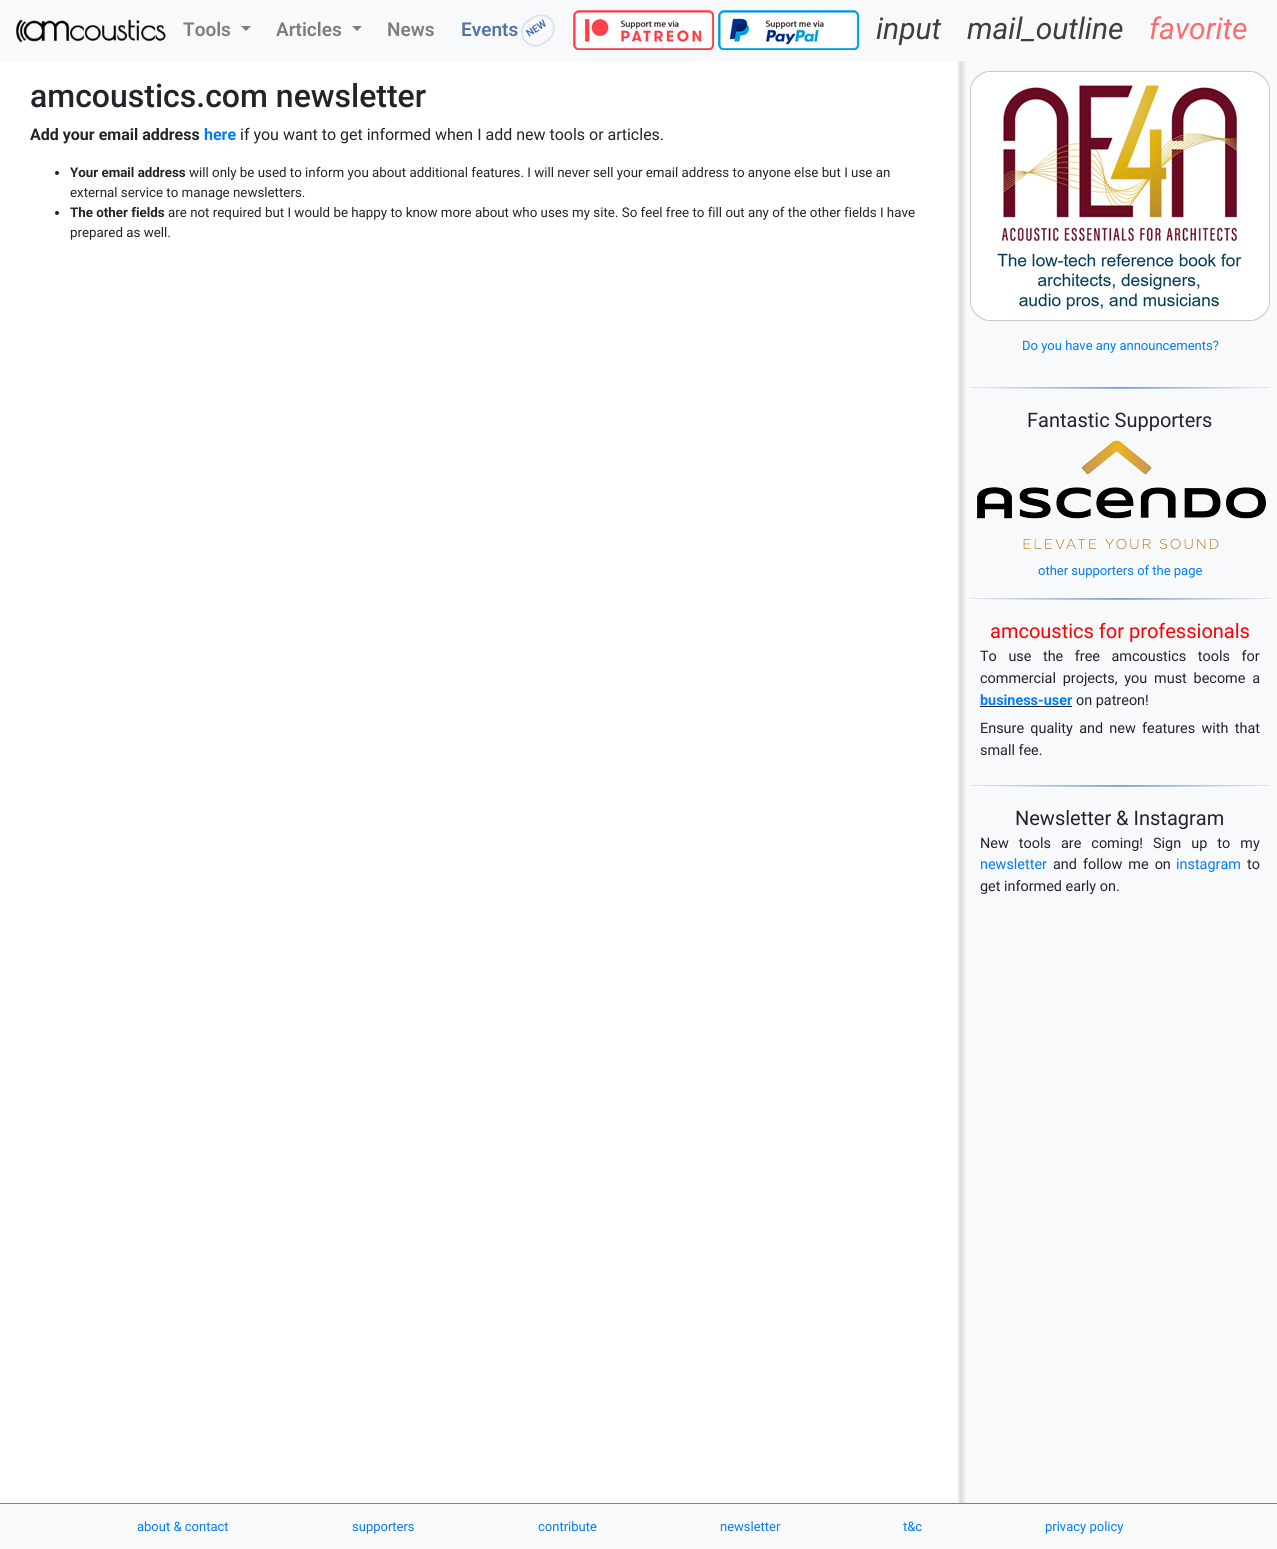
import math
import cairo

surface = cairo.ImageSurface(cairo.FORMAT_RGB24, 1277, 1549)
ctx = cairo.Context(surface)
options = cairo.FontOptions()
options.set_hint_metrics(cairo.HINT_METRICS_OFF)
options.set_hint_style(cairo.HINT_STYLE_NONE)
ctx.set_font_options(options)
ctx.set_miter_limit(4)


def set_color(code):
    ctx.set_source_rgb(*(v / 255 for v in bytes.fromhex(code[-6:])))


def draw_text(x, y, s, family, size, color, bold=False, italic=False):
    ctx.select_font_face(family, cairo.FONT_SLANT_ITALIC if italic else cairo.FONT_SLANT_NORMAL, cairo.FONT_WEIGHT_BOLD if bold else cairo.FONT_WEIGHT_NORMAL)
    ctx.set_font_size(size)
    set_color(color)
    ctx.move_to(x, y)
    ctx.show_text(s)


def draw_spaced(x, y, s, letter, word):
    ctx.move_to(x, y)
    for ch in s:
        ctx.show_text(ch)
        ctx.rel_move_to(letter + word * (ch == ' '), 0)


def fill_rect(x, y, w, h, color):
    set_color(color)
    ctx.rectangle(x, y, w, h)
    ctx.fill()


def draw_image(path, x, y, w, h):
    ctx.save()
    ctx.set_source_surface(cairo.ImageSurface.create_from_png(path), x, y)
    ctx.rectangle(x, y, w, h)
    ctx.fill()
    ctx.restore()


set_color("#ffffff")
ctx.paint()
fill_rect(0, 0, 1277, 61, "#f8f9fa")
draw_image("assets/img1.png", 16, 19, 150, 24)
draw_text(183, 36, "Tools", "Roboto SemiBold", 19, "#7c7d7d")
ctx.new_path()
ctx.move_to(241, 26)
ctx.line_to(251, 26)
ctx.line_to(246, 31)
ctx.close_path()
ctx.fill()
draw_text(276, 36, "Articles", "Roboto SemiBold", 19, "#7c7d7d")
ctx.new_path()
ctx.move_to(352, 26)
ctx.line_to(362, 26)
ctx.line_to(357, 31)
ctx.close_path()
ctx.fill()
draw_text(387, 36, "News", "Roboto SemiBold", 19, "#7c7d7d")
draw_text(461, 36, "Events", "Roboto SemiBold", 19, "#5475a3")
ctx.new_path()
ctx.move_to(528, 21)
ctx.curve_to(531, 19, 534.5, 16, 538.5, 15.5)
ctx.curve_to(552.5, 13, 560, 31, 548, 40)
ctx.curve_to(545, 42, 541, 45, 537.5, 45.5)
ctx.curve_to(523.5, 48, 516, 29, 528, 21)
ctx.close_path()
set_color("#dce4ef")
ctx.stroke()
ctx.save()
ctx.translate(529, 37)
ctx.rotate(-33 * math.pi / 180)
draw_text(0, 0, "NEW", "Roboto SemiBold", 10, "#3b6cb2")
ctx.restore()
draw_image("assets/img2.png", 573, 10, 141, 40)
draw_image("assets/img3.png", 718, 10, 141, 40)
draw_text(876, 39, "input", "Roboto", 30, "#3e3e3f", italic=True)
draw_text(967, 39, "mail_outline", "Roboto", 30, "#3e3e3f", italic=True)
draw_text(1149, 39, "favorite", "Roboto", 30, "#fd6c6c", italic=True)
draw_text(30, 107, "amcoustics.com newsletter", "Roboto Medium", 32, "#212529")
draw_text(30, 140, "Add your email address", "Roboto", 16, "#212529", bold=True)
draw_text(204, 140, "here", "Roboto", 16, "#007bff", bold=True)
draw_text(240, 140, "if you want to get informed when I add new tools or articles.", "Roboto", 16, "#212529")
ctx.new_path()
ctx.arc(57, 173, 2, 0, 2 * math.pi)
ctx.fill()
draw_text(70, 177, "Your email address", "Roboto", 13.33, "#212529", bold=True)
draw_text(189, 177, "will only be used to inform you about additional features. I will never sell your email address to anyone else but I use an", "Roboto", 13.33, "#212529")
draw_text(70, 197, "external service to manage newsletters.", "Roboto", 13.33, "#212529")
ctx.new_path()
ctx.arc(57, 213, 2, 0, 2 * math.pi)
ctx.fill()
draw_text(70, 217, "The other fields", "Roboto", 13.33, "#212529", bold=True)
draw_text(168, 217, "are not required but I would be happy to know more about who uses my site. So feel free to fill out any of the other fields I have", "Roboto", 13.33, "#212529")
draw_text(70, 237, "prepared as well.", "Roboto", 13.33, "#212529")
gradient = cairo.LinearGradient(957, 782, 1277, 782)
gradient.add_color_stop_rgba(0, 1, 1, 1, 1)
gradient.add_color_stop_rgba(0.01, 0.859, 0.859, 0.859, 1)
gradient.add_color_stop_rgba(0.03, 0.973, 0.976, 0.98, 1)
ctx.set_source(gradient)
ctx.rectangle(957, 61, 320, 1442)
ctx.fill()
draw_image("assets/img4.png", 970, 71, 300, 250)
draw_text(1022, 350, "Do you have any announcements?", "Roboto", 13, "#007bff")
gradient = cairo.LinearGradient(1270, 389, 970, 389)
gradient.add_color_stop_rgba(0, 1, 1, 1, 1)
gradient.add_color_stop_rgba(0.5, 0.58, 0.69, 0.835, 1)
gradient.add_color_stop_rgba(1, 1, 1, 1, 1)
ctx.set_source(gradient)
ctx.rectangle(970, 388, 300, 1)
ctx.fill()
gradient = cairo.LinearGradient(1270, 389, 970, 389)
gradient.add_color_stop_rgba(0, 0.902, 0.902, 0.902, 1)
gradient.add_color_stop_rgba(0.5, 0.522, 0.62, 0.753, 1)
gradient.add_color_stop_rgba(1, 0.902, 0.902, 0.902, 1)
ctx.set_source(gradient)
ctx.rectangle(970, 387, 300, 1)
ctx.fill()
draw_text(1027, 427, "Fantastic Supporters", "Roboto", 20, "#212529")
draw_image("assets/img5.png", 976, 440, 291, 110)
draw_text(1038, 575, "other supporters of the page", "Roboto", 13, "#007bff")
gradient = cairo.LinearGradient(1270, 600, 970, 600)
gradient.add_color_stop_rgba(0, 1, 1, 1, 1)
gradient.add_color_stop_rgba(0.5, 0.58, 0.69, 0.835, 1)
gradient.add_color_stop_rgba(1, 1, 1, 1, 1)
ctx.set_source(gradient)
ctx.rectangle(970, 599, 300, 1)
ctx.fill()
gradient = cairo.LinearGradient(1270, 600, 970, 600)
gradient.add_color_stop_rgba(0, 0.902, 0.902, 0.902, 1)
gradient.add_color_stop_rgba(0.5, 0.522, 0.62, 0.753, 1)
gradient.add_color_stop_rgba(1, 0.902, 0.902, 0.902, 1)
ctx.set_source(gradient)
ctx.rectangle(970, 598, 300, 1)
ctx.fill()
draw_text(990, 638, "amcoustics for professionals", "Roboto", 20, "#ff0000")
ctx.set_font_size(14.4)
set_color("#212529")
draw_spaced(980, 661, "To use the free amcoustics tools for", 0, 8)
draw_spaced(980, 683, "commercial projects, you must become a", 0, 3.25)
draw_text(980, 705, "business-user", "Roboto", 14.4, "#007bff", bold=True)
fill_rect(980, 706, 92, 1, "#212529")
draw_text(1076, 705, "on patreon!", "Roboto", 14.4, "#212529")
draw_spaced(980, 733, "Ensure quality and new features with that", 0, 2.75)
draw_text(980, 755, "small fee.", "Roboto", 14.4, "#212529")
gradient = cairo.LinearGradient(1270, 787, 970, 787)
gradient.add_color_stop_rgba(0, 1, 1, 1, 1)
gradient.add_color_stop_rgba(0.5, 0.58, 0.69, 0.835, 1)
gradient.add_color_stop_rgba(1, 1, 1, 1, 1)
ctx.set_source(gradient)
ctx.rectangle(970, 786, 300, 1)
ctx.fill()
gradient = cairo.LinearGradient(1270, 787, 970, 787)
gradient.add_color_stop_rgba(0, 0.902, 0.902, 0.902, 1)
gradient.add_color_stop_rgba(0.5, 0.522, 0.62, 0.753, 1)
gradient.add_color_stop_rgba(1, 0.902, 0.902, 0.902, 1)
ctx.set_source(gradient)
ctx.rectangle(970, 785, 300, 1)
ctx.fill()
draw_text(1015, 825, "Newsletter & Instagram", "Roboto", 20, "#212529")
ctx.set_font_size(14.4)
draw_spaced(980, 848, "New tools are coming! Sign up to my", 0, 6.5)
draw_text(980, 869, "newsletter", "Roboto", 14.4, "#007bff")
set_color("#212529")
draw_spaced(1053, 869, "and follow me on", 0, 2.5)
draw_text(1176, 869, "instagram", "Roboto", 14.4, "#007bff")
draw_text(1247, 869, "to", "Roboto", 14.4, "#212529")
draw_text(980, 891, "get informed early on.", "Roboto", 14.4, "#212529")
fill_rect(0, 1504, 1277, 45, "#fafafa")
fill_rect(0, 1503, 1277, 1, "#808080")
draw_text(137, 1531, "about & contact", "Roboto", 13, "#007bff")
draw_text(352, 1531, "supporters", "Roboto", 13, "#007bff")
draw_text(538, 1531, "contribute", "Roboto", 13, "#007bff")
draw_text(720, 1531, "newsletter", "Roboto", 13, "#007bff")
draw_text(903, 1531, "t&c", "Roboto", 13, "#007bff")
draw_text(1045, 1531, "privacy policy", "Roboto", 13, "#007bff")
surface.write_to_png("output.png")
